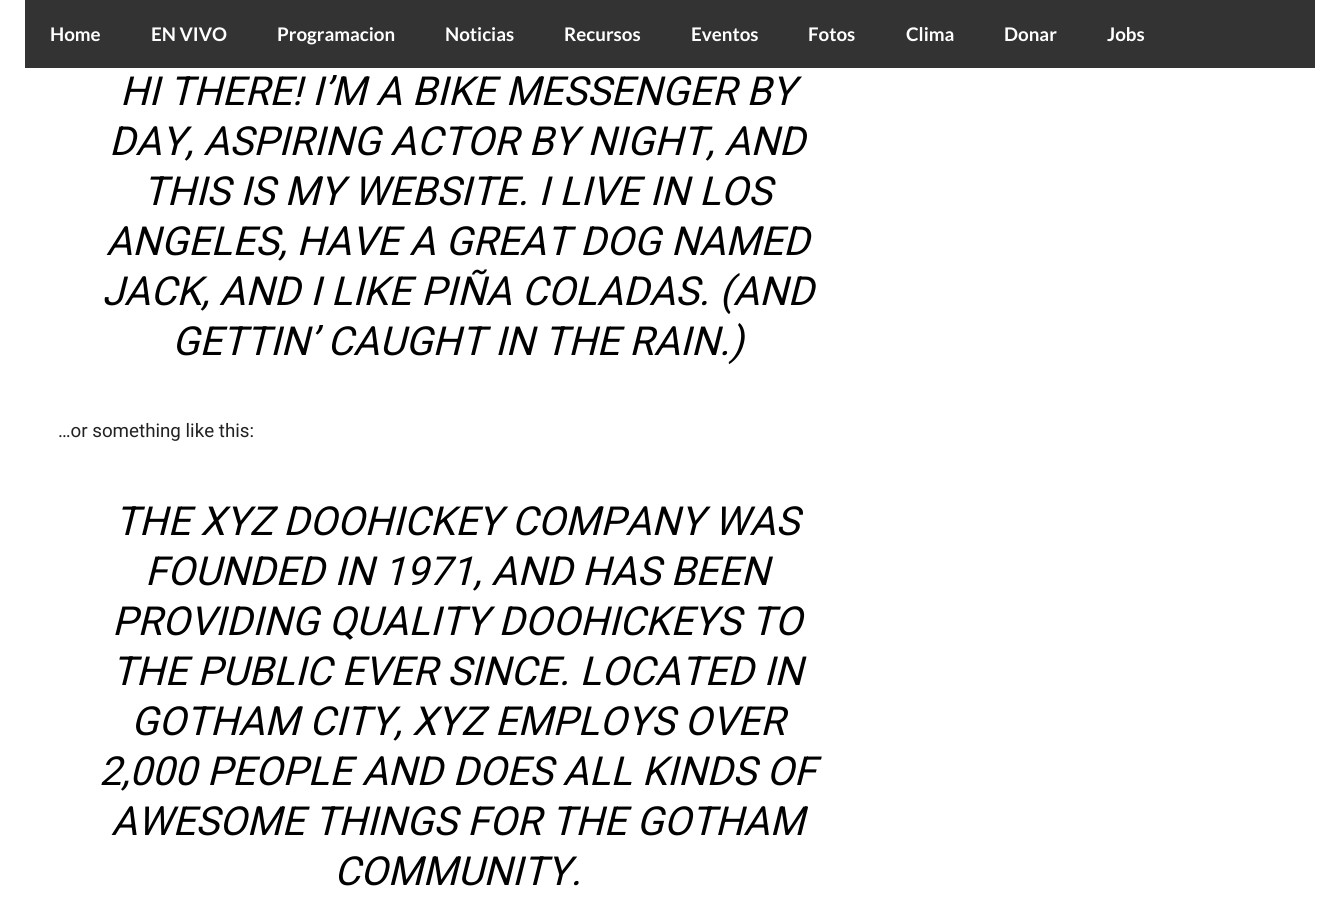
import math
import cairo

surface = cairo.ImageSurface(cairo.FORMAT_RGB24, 1339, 915)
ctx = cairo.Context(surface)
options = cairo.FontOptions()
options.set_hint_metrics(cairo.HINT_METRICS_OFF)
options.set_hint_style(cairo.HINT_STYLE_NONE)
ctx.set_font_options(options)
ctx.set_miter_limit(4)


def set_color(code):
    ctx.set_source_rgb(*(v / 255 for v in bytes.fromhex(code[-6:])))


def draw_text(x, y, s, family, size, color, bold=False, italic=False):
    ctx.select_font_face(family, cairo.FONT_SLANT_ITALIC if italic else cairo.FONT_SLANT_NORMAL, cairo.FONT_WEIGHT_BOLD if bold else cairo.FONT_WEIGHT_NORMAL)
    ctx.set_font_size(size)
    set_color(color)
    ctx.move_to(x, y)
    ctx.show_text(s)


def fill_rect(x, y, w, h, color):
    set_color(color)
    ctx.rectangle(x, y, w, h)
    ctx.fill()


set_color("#ffffff")
ctx.paint()
fill_rect(25, 0, 1290, 68, "#333333")
draw_text(50, 41, "Home", "Lato", 18.75, "#ffffff", bold=True)
draw_text(151, 41, "EN VIVO", "Lato", 18.75, "#ffffff", bold=True)
draw_text(277, 41, "Programacion", "Lato", 18.75, "#ffffff", bold=True)
draw_text(445, 41, "Noticias", "Lato", 18.75, "#ffffff", bold=True)
draw_text(564, 41, "Recursos", "Lato", 18.75, "#ffffff", bold=True)
draw_text(691, 41, "Eventos", "Lato", 18.75, "#ffffff", bold=True)
draw_text(808, 41, "Fotos", "Lato", 18.75, "#ffffff", bold=True)
draw_text(906, 41, "Clima", "Lato", 18.75, "#ffffff", bold=True)
draw_text(1004, 41, "Donar", "Lato", 18.75, "#ffffff", bold=True)
draw_text(1107, 41, "Jobs", "Lato", 18.75, "#ffffff", bold=True)
draw_text(120, 105, "HI THERE! I’M A BIKE MESSENGER BY", "Roboto", 40, "#000000", italic=True)
draw_text(109, 155, "DAY, ASPIRING ACTOR BY NIGHT, AND", "Roboto", 40, "#000000", italic=True)
draw_text(143, 205, "THIS IS MY WEBSITE. I LIVE IN LOS", "Roboto", 40, "#000000", italic=True)
draw_text(106, 255, "ANGELES, HAVE A GREAT DOG NAMED", "Roboto", 40, "#000000", italic=True)
draw_text(102, 305, "JACK, AND I LIKE PIÑA COLADAS. (AND", "Roboto", 40, "#000000", italic=True)
draw_text(172, 355, "GETTIN’ CAUGHT IN THE RAIN.)", "Roboto", 40, "#000000", italic=True)
draw_text(58, 437, "…or something like this:", "Roboto", 18.75, "#222222")
draw_text(115, 535, "THE XYZ DOOHICKEY COMPANY WAS", "Roboto", 40, "#000000", italic=True)
draw_text(145, 585, "FOUNDED IN 1971, AND HAS BEEN", "Roboto", 40, "#000000", italic=True)
draw_text(112, 635, "PROVIDING QUALITY DOOHICKEYS TO", "Roboto", 40, "#000000", italic=True)
draw_text(112, 685, "THE PUBLIC EVER SINCE. LOCATED IN", "Roboto", 40, "#000000", italic=True)
draw_text(131, 735, "GOTHAM CITY, XYZ EMPLOYS OVER", "Roboto", 40, "#000000", italic=True)
draw_text(99, 785, "2,000 PEOPLE AND DOES ALL KINDS OF", "Roboto", 40, "#000000", italic=True)
draw_text(111, 835, "AWESOME THINGS FOR THE GOTHAM", "Roboto", 40, "#000000", italic=True)
draw_text(334, 885, "COMMUNITY.", "Roboto", 40, "#000000", italic=True)
surface.write_to_png("output.png")
